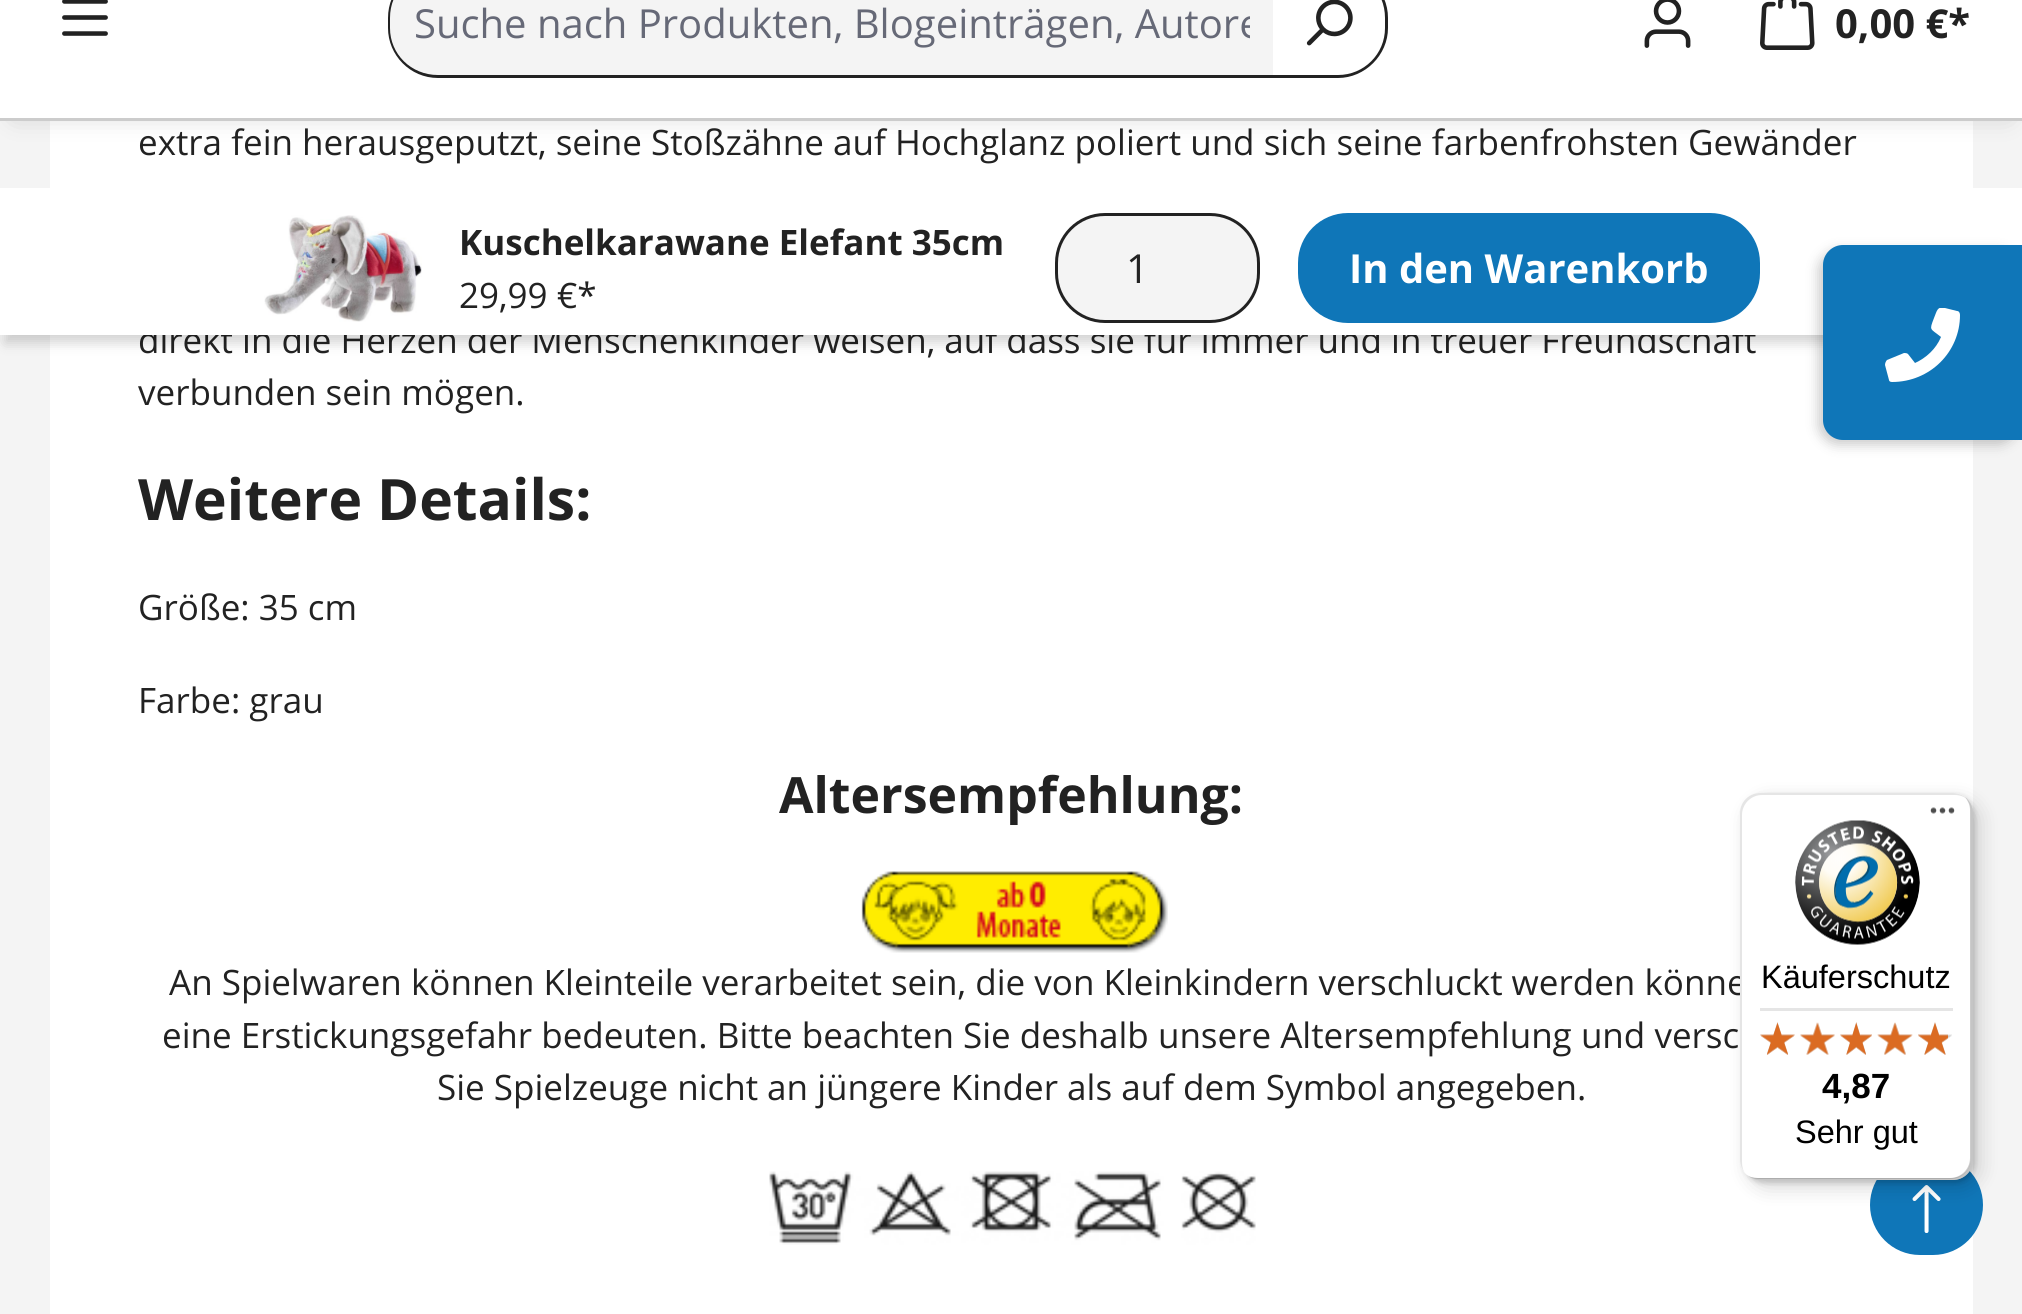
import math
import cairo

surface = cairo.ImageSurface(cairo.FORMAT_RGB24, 2022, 1314)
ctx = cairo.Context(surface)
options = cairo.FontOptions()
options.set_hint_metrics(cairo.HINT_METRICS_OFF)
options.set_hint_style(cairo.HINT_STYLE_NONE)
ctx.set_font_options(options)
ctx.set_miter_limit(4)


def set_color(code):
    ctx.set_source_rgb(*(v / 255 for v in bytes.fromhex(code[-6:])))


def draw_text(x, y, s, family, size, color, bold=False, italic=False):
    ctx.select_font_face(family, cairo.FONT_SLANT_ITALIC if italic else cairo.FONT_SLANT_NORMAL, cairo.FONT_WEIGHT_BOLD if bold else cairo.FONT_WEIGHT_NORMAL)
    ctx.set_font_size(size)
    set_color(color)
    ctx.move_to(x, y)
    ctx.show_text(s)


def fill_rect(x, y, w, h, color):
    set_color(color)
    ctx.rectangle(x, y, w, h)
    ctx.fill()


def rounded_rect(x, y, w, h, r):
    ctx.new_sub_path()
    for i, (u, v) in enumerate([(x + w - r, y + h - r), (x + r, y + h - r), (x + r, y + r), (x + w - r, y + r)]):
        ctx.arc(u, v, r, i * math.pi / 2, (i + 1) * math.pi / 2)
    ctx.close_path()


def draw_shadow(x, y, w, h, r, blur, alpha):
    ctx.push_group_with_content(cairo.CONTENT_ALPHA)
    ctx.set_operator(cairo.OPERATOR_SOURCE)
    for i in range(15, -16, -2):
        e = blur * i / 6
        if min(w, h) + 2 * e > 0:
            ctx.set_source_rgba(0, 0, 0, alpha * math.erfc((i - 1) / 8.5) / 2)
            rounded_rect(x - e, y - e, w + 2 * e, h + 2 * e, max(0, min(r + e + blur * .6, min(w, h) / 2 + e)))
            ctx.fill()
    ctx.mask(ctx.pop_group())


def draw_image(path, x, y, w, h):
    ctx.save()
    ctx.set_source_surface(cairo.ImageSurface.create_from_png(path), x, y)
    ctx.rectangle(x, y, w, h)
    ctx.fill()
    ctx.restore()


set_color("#f4f4f4")
ctx.paint()
fill_rect(50, 121, 1923, 1193, "#ffffff")
set_color("#000000")
draw_shadow(15, -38, 1993, 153, 0, 12.5, 0.2)
fill_rect(0, 0, 2022, 118, "#ffffff")
fill_rect(0, 118, 2022, 3, "#cccccc")
draw_image("assets/img1.png", 62, 0, 46, 36)
set_color("#f4f4f4")
ctx.new_path()
ctx.move_to(438, -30)
ctx.line_to(1273, -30)
ctx.line_to(1273, 75)
ctx.line_to(438, 75)
ctx.curve_to(411.5, 75, 390, 53.5, 390, 27)
ctx.line_to(390, 18)
ctx.curve_to(390, -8.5, 411.5, -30, 438, -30)
ctx.close_path()
ctx.fill()
set_color("#222222")
ctx.set_fill_rule(cairo.FILL_RULE_EVEN_ODD)
ctx.new_path()
ctx.move_to(438, -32)
ctx.line_to(1272, -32)
ctx.line_to(1272, 78)
ctx.line_to(438, 78)
ctx.curve_to(410, 78, 388, 55, 388, 28)
ctx.line_to(388, 18)
ctx.curve_to(388, -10, 410, -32, 438, -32)
ctx.close_path()
ctx.move_to(438, -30)
ctx.line_to(1272, -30)
ctx.line_to(1272, 75)
ctx.line_to(438, 75)
ctx.curve_to(411, 75, 390, 54, 390, 28)
ctx.line_to(390, 18)
ctx.curve_to(390, -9, 411, -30, 438, -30)
ctx.close_path()
ctx.fill()
ctx.save()
ctx.set_fill_rule(cairo.FILL_RULE_WINDING)
ctx.rectangle(413, 0, 837, 50)
ctx.clip()
draw_text(414, 38, "Suche nach Produkten, Blogeinträgen, Autore", "Open Sans", 40, "#666977")
ctx.restore()
ctx.new_path()
ctx.move_to(1270, -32)
ctx.line_to(1338, -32)
ctx.curve_to(1365, -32, 1388, -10, 1388, 18)
ctx.line_to(1388, 28)
ctx.curve_to(1388, 55, 1365, 78, 1338, 78)
ctx.line_to(1270, 78)
ctx.close_path()
ctx.move_to(1270, -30)
ctx.line_to(1338, -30)
ctx.curve_to(1364, -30, 1385, -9, 1385, 18)
ctx.line_to(1385, 28)
ctx.curve_to(1385, 54, 1364, 75, 1338, 75)
ctx.line_to(1270, 75)
ctx.close_path()
ctx.fill()
draw_image("assets/img2.png", 1306, 0, 47, 46)
draw_image("assets/img3.png", 1644, 0, 47, 48)
draw_image("assets/img4.png", 1760, 0, 55, 50)
draw_text(1835, 38, "0,00 €*", "Open Sans", 40, "#222222", bold=True)
draw_text(138, 155, "extra fein herausgeputzt, seine Stoßzähne auf Hochglanz poliert und sich seine farbenfrohsten Gewänder", "Open Sans", 35, "#222222")
draw_text(138, 353, "direkt in die Herzen der Menschenkinder weisen, auf dass sie für immer und in treuer Freundschaft", "Open Sans", 35, "#222222")
draw_text(138, 405, "verbunden sein mögen.", "Open Sans", 35, "#222222")
draw_text(138, 520, "Weitere Details:", "Open Sans", 57, "#222222", bold=True)
draw_text(138, 620, "Größe: 35 cm", "Open Sans", 35, "#222222")
draw_text(138, 713, "Farbe: grau", "Open Sans", 35, "#222222")
draw_text(779, 813, "Altersempfehlung:", "Open Sans", 50, "#222222", bold=True)
draw_image("assets/img5.png", 861, 871, 307, 82)
draw_text(169, 995, "An Spielwaren können Kleinteile verarbeitet sein, die von Kleinkindern verschluckt werden könne", "Open Sans", 35, "#222222")
draw_text(162, 1048, "eine Erstickungsgefahr bedeuten. Bitte beachten Sie deshalb unsere Altersempfehlung und versc", "Open Sans", 35, "#222222")
draw_text(437, 1100, "Sie Spielzeuge nicht an jüngere Kinder als auf dem Symbol angegeben.", "Open Sans", 35, "#222222")
draw_image("assets/img6.png", 769, 1171, 487, 74)
set_color("#000000")
draw_shadow(5, 205, 2013, 138, 0, 6, 0.17)
fill_rect(0, 188, 2022, 147, "#ffffff")
draw_image("assets/img7.png", 264, 215, 158, 107)
draw_text(459, 255, "Kuschelkarawane Elefant 35cm", "Open Sans", 35, "#222222", bold=True)
draw_text(459, 308, "29,99 €*", "Open Sans", 35, "#222222")
set_color("#f4f4f4")
rounded_rect(1056.5, 214.5, 202, 107, 48.5)
ctx.fill_preserve()
set_color("#222222")
ctx.set_line_width(3)
ctx.stroke()
draw_text(1126, 283, "1", "Open Sans", 40, "#222222")
set_color("#0f76b8")
rounded_rect(1299.5, 214.5, 459, 107, 48.5)
ctx.fill_preserve()
ctx.stroke()
draw_text(1349, 283, "In den Warenkorb", "Open Sans", 40, "#ffffff", bold=True)
set_color("#000000")
draw_shadow(1818, 250, 200, 195, 20, 6, 0.2)
set_color("#0f76b8")
ctx.new_path()
ctx.move_to(1843, 245)
ctx.line_to(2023, 245)
ctx.line_to(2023, 440)
ctx.line_to(1843, 440)
ctx.curve_to(1832, 440, 1823, 431, 1823, 420)
ctx.line_to(1823, 265)
ctx.curve_to(1823, 254, 1832, 245, 1843, 245)
ctx.close_path()
ctx.fill()
ctx.save()
ctx.set_fill_rule(cairo.FILL_RULE_WINDING)
ctx.rectangle(1885, 308, 75, 75)
ctx.clip()
set_color("#ffffff")
ctx.new_path()
ctx.move_to(1957, 311)
ctx.line_to(1945, 308)
ctx.curve_to(1937, 306, 1937, 311, 1934, 318)
ctx.curve_to(1929, 331, 1930, 328, 1941, 337)
ctx.curve_to(1936, 349, 1926, 358, 1915, 363)
ctx.line_to(1908, 354)
ctx.curve_to(1907, 353, 1905, 353, 1904, 353)
ctx.line_to(1887, 360)
ctx.curve_to(1886, 361, 1885, 363, 1885, 365)
ctx.line_to(1889, 380)
ctx.curve_to(1889, 381, 1890, 382, 1892, 382)
ctx.curve_to(1930, 382, 1960, 352, 1960, 315)
ctx.curve_to(1960, 313, 1959, 311, 1957, 311)
ctx.close_path()
ctx.fill()
ctx.restore()
rounded_rect(1871.5, 1156.5, 110, 97, 48.5)
ctx.fill_preserve()
ctx.stroke()
draw_image("assets/img20.png", 1912, 1185, 29, 48)
set_color("#000000")
draw_shadow(1748, 800, 232, 388, 20, 10, 0.15)
draw_shadow(1743, 795, 232, 388, 20, 2.5, 0.15)
set_color("#ffffff")
rounded_rect(1740, 793, 233, 387, 20)
ctx.fill()
set_color("#e5e5e5")
ctx.set_fill_rule(cairo.FILL_RULE_WINDING)
ctx.new_path()
ctx.move_to(1762, 795)
ctx.line_to(1955, 795)
ctx.curve_to(1960, 795, 1965, 797, 1968, 800)
ctx.curve_to(1965, 796, 1959, 793, 1953, 793)
ctx.line_to(1760, 793)
ctx.curve_to(1749, 793, 1740, 802, 1740, 813)
ctx.line_to(1740, 1160)
ctx.curve_to(1740, 1165, 1742, 1170, 1746, 1174)
ctx.curve_to(1743, 1171, 1742, 1167, 1742, 1162)
ctx.line_to(1742, 815)
ctx.curve_to(1742, 804, 1751, 795, 1762, 795)
ctx.close_path()
ctx.fill()
ctx.set_source_rgba(0, 0, 0, 0.2)
ctx.new_path()
ctx.move_to(1746, 1174)
ctx.curve_to(1750, 1178, 1755, 1180, 1760, 1180)
ctx.line_to(1953, 1180)
ctx.curve_to(1964, 1180, 1973, 1171, 1973, 1160)
ctx.line_to(1973, 813)
ctx.curve_to(1973, 807, 1970, 801, 1965, 797)
ctx.curve_to(1968, 801, 1970, 805, 1970, 810)
ctx.line_to(1970, 1158)
ctx.curve_to(1970, 1169, 1961, 1178, 1950, 1178)
ctx.line_to(1758, 1178)
ctx.curve_to(1753, 1178, 1749, 1177, 1746, 1174)
ctx.close_path()
ctx.fill()
ctx.set_source_rgba(0.196, 0.196, 0.196, 0.2)
ctx.new_path()
ctx.move_to(1746, 1174)
ctx.curve_to(1750, 1178, 1755, 1180, 1760, 1180)
ctx.line_to(1953, 1180)
ctx.curve_to(1964, 1180, 1973, 1171, 1973, 1160)
ctx.line_to(1973, 813)
ctx.curve_to(1973, 807, 1970, 801, 1966, 798)
ctx.curve_to(1969, 801, 1971, 806, 1971, 811)
ctx.line_to(1971, 1158)
ctx.curve_to(1971, 1170, 1962, 1178, 1951, 1178)
ctx.line_to(1758, 1178)
ctx.curve_to(1753, 1178, 1749, 1177, 1746, 1174)
ctx.close_path()
ctx.fill()
ctx.set_source_rgba(1, 1, 1, 0.3)
ctx.new_path()
ctx.move_to(1745, 1173)
ctx.curve_to(1749, 1177, 1754, 1180, 1760, 1180)
ctx.line_to(1953, 1180)
ctx.curve_to(1964, 1180, 1973, 1171, 1973, 1160)
ctx.line_to(1973, 813)
ctx.curve_to(1973, 807, 1970, 801, 1966, 798)
ctx.curve_to(1969, 801, 1971, 806, 1971, 811)
ctx.line_to(1971, 1159)
ctx.curve_to(1971, 1170, 1962, 1179, 1951, 1179)
ctx.line_to(1759, 1179)
ctx.curve_to(1754, 1179, 1749, 1177, 1745, 1173)
ctx.close_path()
ctx.fill()
draw_image("assets/img8.png", 1930, 807, 25, 7)
draw_image("assets/img9.png", 1795, 820, 125, 125)
draw_text(1761, 988, "Käuferschutz", "Liberation Sans", 32.5, "#000000")
fill_rect(1760, 1008, 193, 3, "#e5e5e5")
draw_image("assets/img10.png", 1760, 1022, 35, 33)
draw_image("assets/img11.png", 1800, 1023, 35, 32)
draw_image("assets/img12.png", 1840, 1022, 32, 33)
draw_image("assets/img13.png", 1878, 1023, 34, 32)
draw_image("assets/img14.png", 1918, 1022, 34, 33)
draw_image("assets/img15.png", 1760, 1022, 35, 33)
draw_image("assets/img16.png", 1800, 1022, 35, 33)
draw_image("assets/img17.png", 1840, 1022, 32, 33)
draw_image("assets/img18.png", 1877, 1022, 36, 33)
draw_image("assets/img19.png", 1918, 1022, 30, 33)
draw_text(1822, 1098, "4,87", "Liberation Sans", 35, "#000000", bold=True)
draw_text(1795, 1143, "Sehr gut", "Liberation Sans", 32.5, "#000000")
surface.write_to_png("output.png")
